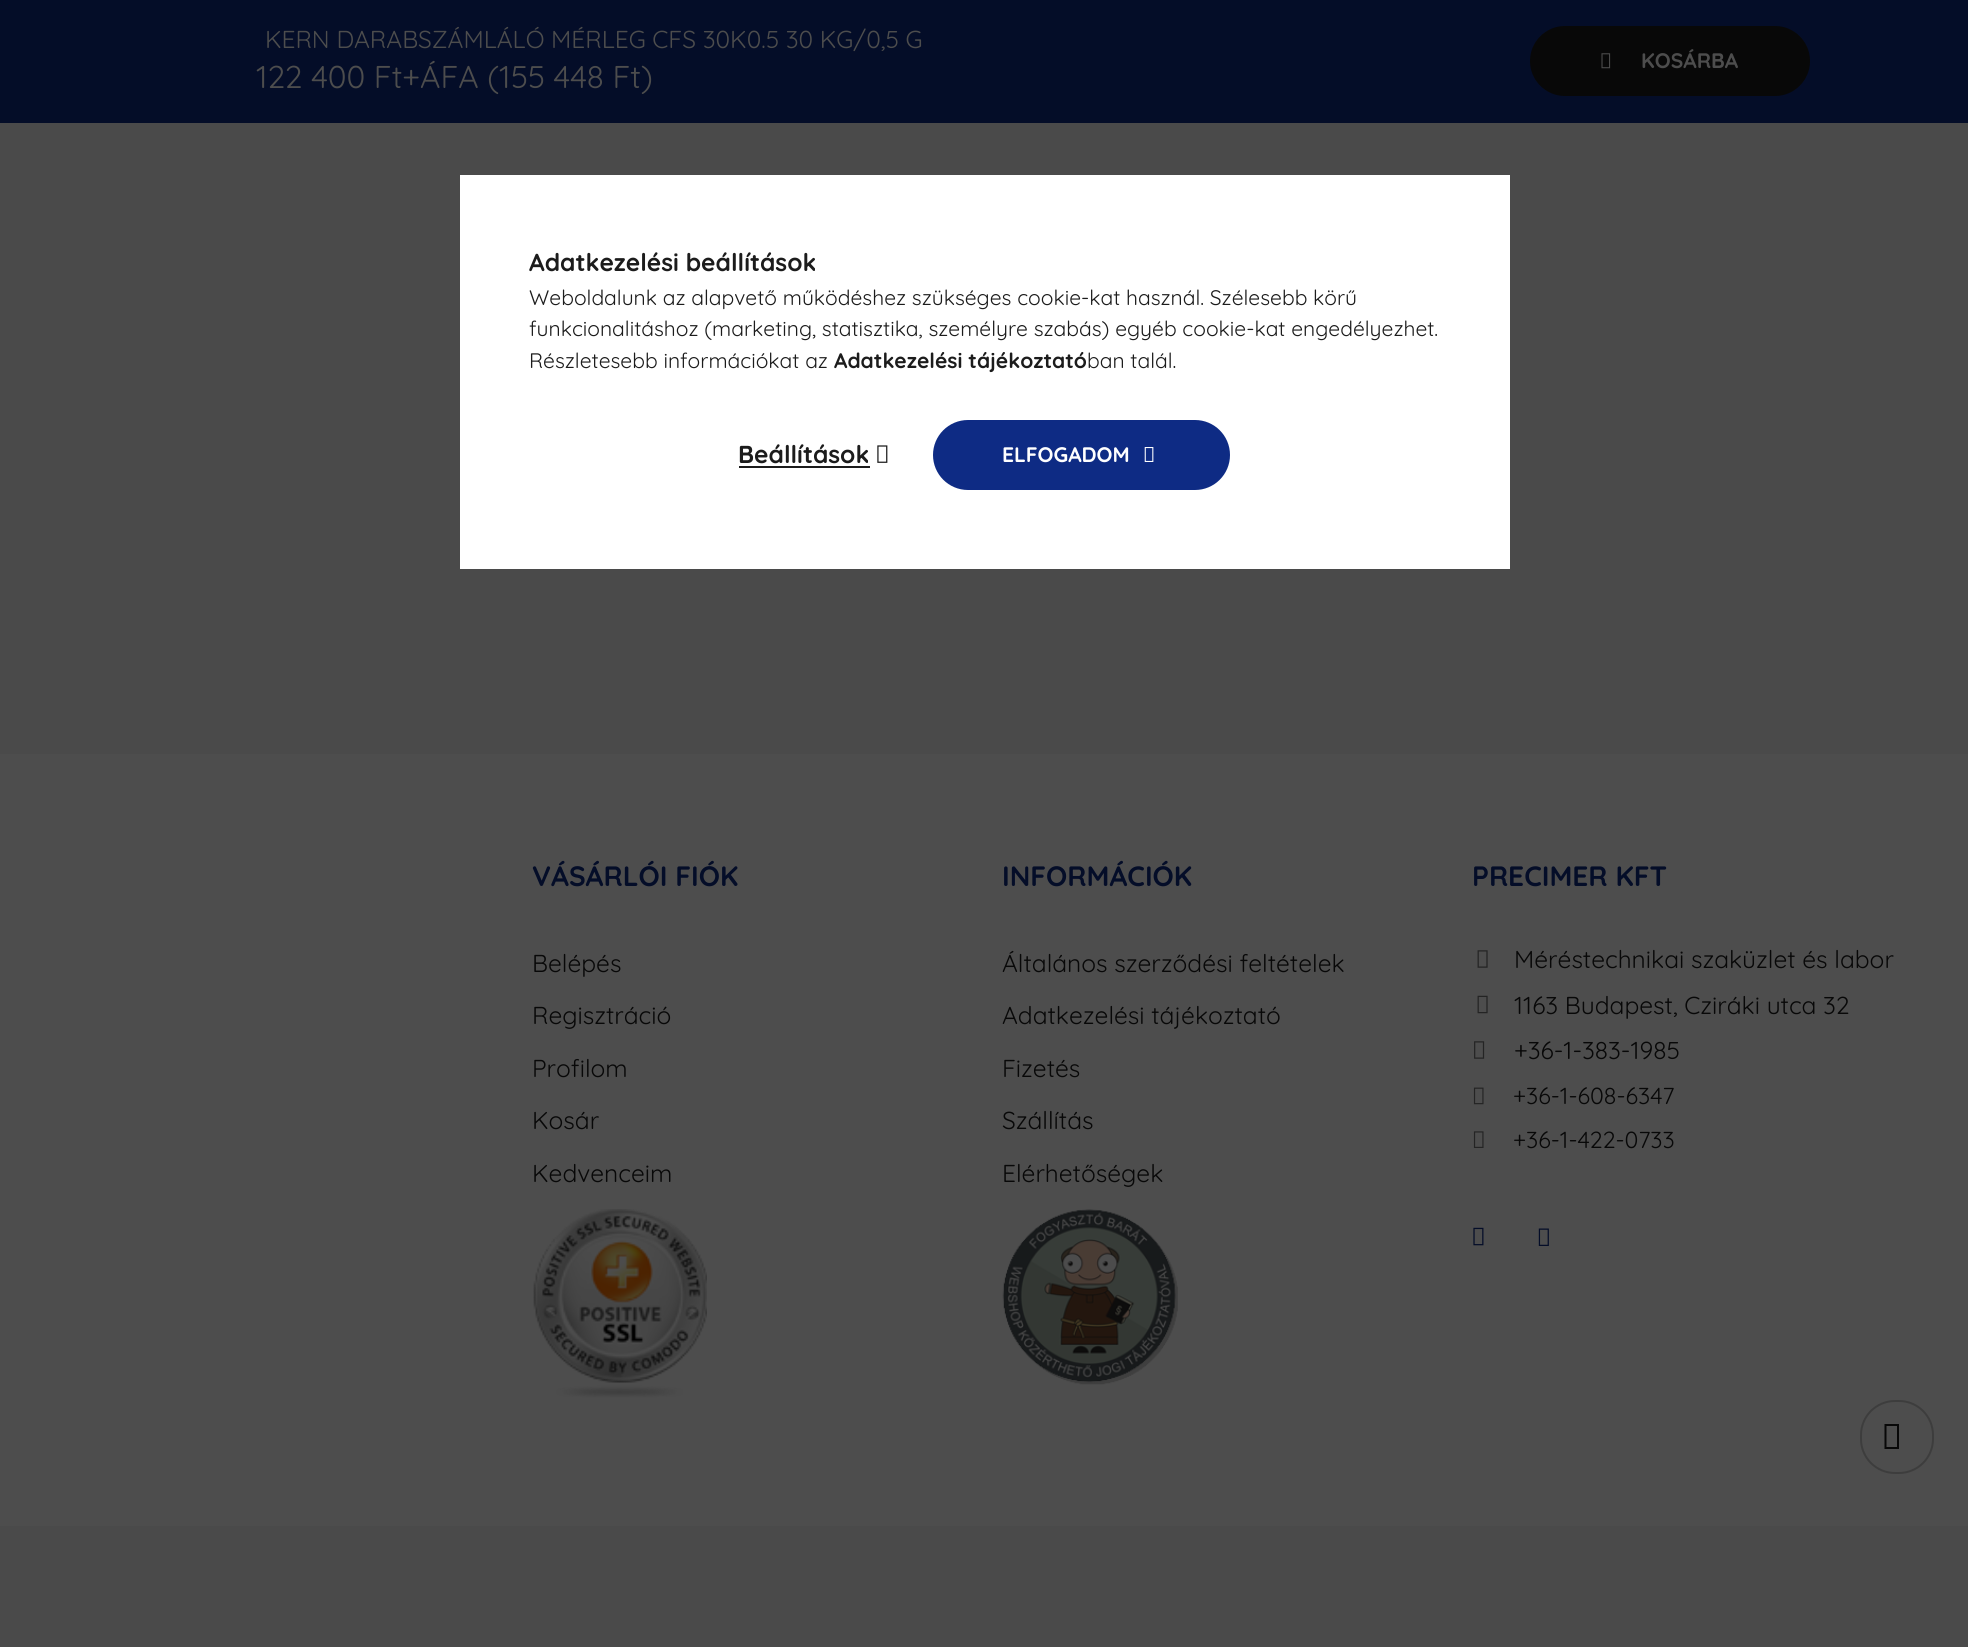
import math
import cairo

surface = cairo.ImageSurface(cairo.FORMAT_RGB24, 1968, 1647)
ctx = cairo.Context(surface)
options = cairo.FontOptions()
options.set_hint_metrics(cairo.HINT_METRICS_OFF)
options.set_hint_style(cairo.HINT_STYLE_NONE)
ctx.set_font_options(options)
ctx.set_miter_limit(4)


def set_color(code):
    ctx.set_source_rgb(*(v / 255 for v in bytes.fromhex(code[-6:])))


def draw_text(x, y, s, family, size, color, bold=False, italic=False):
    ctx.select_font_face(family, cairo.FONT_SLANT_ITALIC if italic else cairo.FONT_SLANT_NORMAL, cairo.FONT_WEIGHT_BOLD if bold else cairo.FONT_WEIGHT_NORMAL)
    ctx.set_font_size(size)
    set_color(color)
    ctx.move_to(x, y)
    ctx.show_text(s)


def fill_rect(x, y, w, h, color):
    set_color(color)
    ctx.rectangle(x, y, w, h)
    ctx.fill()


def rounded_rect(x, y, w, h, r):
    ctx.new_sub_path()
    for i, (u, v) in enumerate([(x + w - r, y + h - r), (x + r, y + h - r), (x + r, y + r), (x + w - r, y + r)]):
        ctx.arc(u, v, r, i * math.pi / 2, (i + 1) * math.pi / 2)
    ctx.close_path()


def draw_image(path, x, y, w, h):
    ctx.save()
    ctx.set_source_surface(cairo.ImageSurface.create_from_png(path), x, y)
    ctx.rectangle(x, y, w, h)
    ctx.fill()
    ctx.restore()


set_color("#4a4a4a")
ctx.paint()
fill_rect(0, 0, 1968, 123, "#040d28")
draw_text(265, 48, "KERN DARABSZÁMLÁLÓ MÉRLEG CFS 30K0.5 30 KG/0,5 G", "Quicksand", 24.5, "#4d4d4d")
draw_text(256, 88, "122 400 Ft+ÁFA (155 448 Ft)", "Quicksand", 31.5, "#4d4d4d")
set_color("#080808")
rounded_rect(1530, 26, 280, 70, 35)
ctx.fill()
draw_image("assets/img1.png", 1601, 53, 10, 16)
draw_text(1641, 68, "KOSÁRBA", "Quicksand", 21, "#4d4d4d", bold=True)
fill_rect(0, 754, 1968, 772, "#4d4d4d")
draw_text(532, 886, "VÁSÁRLÓI FIÓK", "Quicksand", 28, "#040d28", bold=True)
draw_text(532, 972, "Belépés", "Quicksand", 24.5, "#080808")
draw_text(532, 1024, "Regisztráció", "Quicksand", 24.5, "#080808")
draw_text(532, 1077, "Profilom", "Quicksand", 24.5, "#080808")
draw_text(532, 1129, "Kosár", "Quicksand", 24.5, "#080808")
draw_text(532, 1182, "Kedvenceim", "Quicksand", 24.5, "#080808")
draw_image("assets/img2.png", 533, 1209, 174, 189)
draw_text(1002, 886, "INFORMÁCIÓK", "Quicksand", 28, "#040d28", bold=True)
draw_text(1002, 972, "Általános szerződési feltételek", "Quicksand", 24.5, "#080808")
draw_text(1002, 1024, "Adatkezelési tájékoztató", "Quicksand", 24.5, "#080808")
draw_text(1002, 1077, "Fizetés", "Quicksand", 24.5, "#080808")
draw_text(1002, 1129, "Szállítás", "Quicksand", 24.5, "#080808")
draw_text(1002, 1182, "Elérhetőségek", "Quicksand", 24.5, "#080808")
draw_image("assets/img3.png", 1002, 1209, 176, 176)
draw_text(1472, 886, "PRECIMER KFT", "Quicksand", 28, "#040d28", bold=True)
draw_image("assets/img4.png", 1477, 950, 11, 18)
draw_text(1514, 968, "Méréstechnikai szaküzlet és labor", "Quicksand", 24.5, "#080808")
draw_image("assets/img5.png", 1477, 995, 11, 19)
draw_text(1514, 1014, "1163 Budapest, Cziráki utca 32", "Quicksand", 24.5, "#080808")
draw_image("assets/img6.png", 1474, 1041, 11, 18)
draw_text(1514, 1059, "+36-1-383-1985", "Quicksand", 24.5, "#080808")
draw_image("assets/img7.png", 1473, 1087, 11, 18)
draw_text(1513, 1104, "+36-1-608-6347", "Quicksand", 23.25, "#080808")
draw_image("assets/img8.png", 1473, 1131, 11, 17)
draw_text(1513, 1148, "+36-1-422-0733", "Quicksand", 23.25, "#080808")
draw_image("assets/img9.png", 1473, 1227, 11, 19)
draw_image("assets/img10.png", 1538, 1228, 11, 18)
fill_rect(460, 175, 1050, 394, "#ffffff")
draw_text(529, 271, "Adatkezelési beállítások", "Quicksand", 24.5, "#1c1c1c", bold=True)
draw_text(529, 305, "Weboldalunk az alapvető működéshez szükséges cookie-kat használ. Szélesebb körű", "Quicksand", 21, "#1c1c1c")
draw_text(529, 336, "funkcionalitáshoz (marketing, statisztika, személyre szabás) egyéb cookie-kat engedélyezhet.", "Quicksand", 21, "#1c1c1c")
draw_text(529, 368, "Részletesebb információkat az", "Quicksand", 21, "#1c1c1c")
draw_text(834, 368, "Adatkezelési tájékoztató", "Quicksand", 21, "#1c1c1c", bold=True)
draw_text(1087, 368, "ban talál.", "Quicksand", 21, "#1c1c1c")
draw_text(738, 463, "Beállítások", "Quicksand", 24.5, "#1c1c1c", bold=True)
fill_rect(739, 466, 131, 2, "#1c1c1c")
draw_image("assets/img11.png", 877, 445, 11, 18)
set_color("#0e2b84")
rounded_rect(933, 420, 297, 70, 35)
ctx.fill()
draw_text(1002, 462, "ELFOGADOM", "Quicksand", 21, "#ffffff", bold=True)
draw_image("assets/img12.png", 1144, 447, 10, 15)
rounded_rect(1861, 1401, 72, 72, 34)
set_color("#3d3d3d")
ctx.stroke()
set_color("#080808")
ctx.new_path()
ctx.move_to(1884.5, 1449)
ctx.line_to(1884.5, 1424)
ctx.line_to(1899, 1424)
ctx.line_to(1899, 1449)
ctx.close_path()
ctx.move_to(1886.5, 1447)
ctx.line_to(1897, 1447)
ctx.line_to(1897, 1426)
ctx.line_to(1886.5, 1426)
ctx.close_path()
ctx.fill()
surface.write_to_png("output.png")
